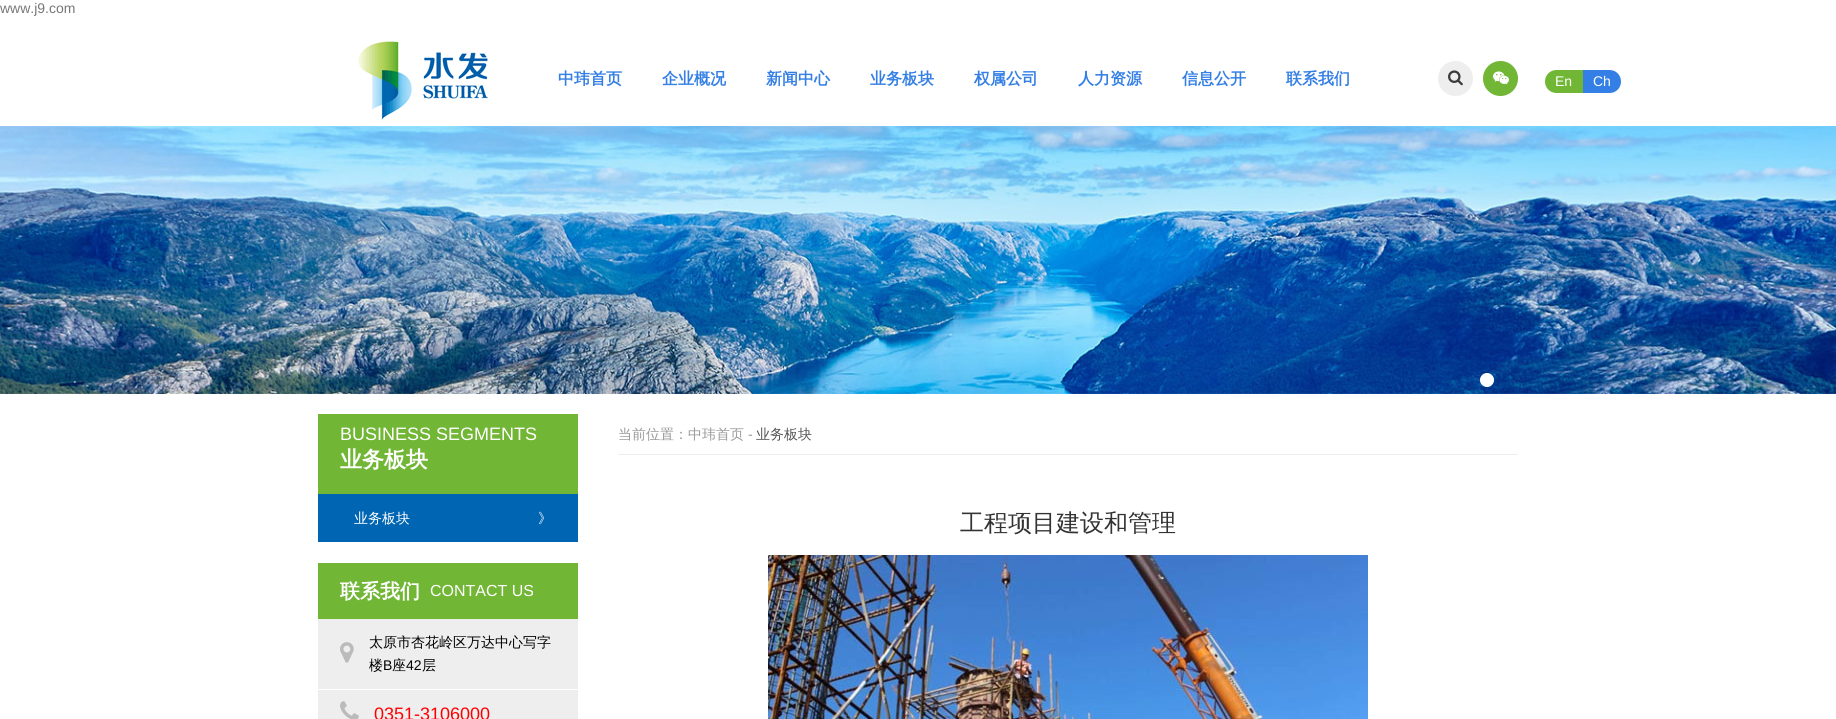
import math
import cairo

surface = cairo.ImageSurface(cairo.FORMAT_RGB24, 1836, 719)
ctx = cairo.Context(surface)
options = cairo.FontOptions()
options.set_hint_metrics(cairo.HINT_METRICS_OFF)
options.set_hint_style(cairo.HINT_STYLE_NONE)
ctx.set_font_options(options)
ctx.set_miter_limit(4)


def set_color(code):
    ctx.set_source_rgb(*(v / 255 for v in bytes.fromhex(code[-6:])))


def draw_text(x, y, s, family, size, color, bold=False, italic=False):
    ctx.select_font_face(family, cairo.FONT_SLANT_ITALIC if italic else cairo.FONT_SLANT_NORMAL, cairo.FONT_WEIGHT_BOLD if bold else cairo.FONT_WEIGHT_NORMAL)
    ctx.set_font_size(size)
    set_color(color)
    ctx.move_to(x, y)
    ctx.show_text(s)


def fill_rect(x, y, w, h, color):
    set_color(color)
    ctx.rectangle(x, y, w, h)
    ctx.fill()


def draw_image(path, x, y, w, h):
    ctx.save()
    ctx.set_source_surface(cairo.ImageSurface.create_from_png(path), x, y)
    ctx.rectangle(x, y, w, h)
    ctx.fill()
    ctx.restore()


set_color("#ffffff")
ctx.paint()
draw_text(0, 13, "www.j9.com", "Liberation Sans", 14, "#777777")
draw_image("assets/img1.png", 358, 41, 130, 79)
draw_text(558, 84, "中玮首页", "WenQuanYi Zen Hei", 16, "#337fe5", bold=True)
draw_text(662, 84, "企业概况", "WenQuanYi Zen Hei", 16, "#337fe5", bold=True)
draw_text(766, 84, "新闻中心", "WenQuanYi Zen Hei", 16, "#337fe5", bold=True)
draw_text(870, 84, "业务板块", "WenQuanYi Zen Hei", 16, "#337fe5", bold=True)
draw_text(974, 84, "权属公司", "WenQuanYi Zen Hei", 16, "#337fe5", bold=True)
draw_text(1078, 84, "人力资源", "WenQuanYi Zen Hei", 16, "#337fe5", bold=True)
draw_text(1182, 84, "信息公开", "WenQuanYi Zen Hei", 16, "#337fe5", bold=True)
draw_text(1286, 84, "联系我们", "WenQuanYi Zen Hei", 16, "#337fe5", bold=True)
set_color("#eeeeee")
ctx.new_path()
ctx.arc(1455.5, 78.5, 17.5, 0, 2 * math.pi)
ctx.fill()
draw_image("assets/img2.png", 1448, 70, 15, 16)
set_color("#71b635")
ctx.arc(1500.5, 78.5, 17.5, 0, 2 * math.pi)
ctx.fill()
draw_image("assets/img3.png", 1493, 71, 16, 14)
ctx.new_path()
ctx.move_to(1556.5, 70)
ctx.line_to(1583, 70)
ctx.line_to(1583, 93)
ctx.line_to(1556.5, 93)
ctx.curve_to(1550, 93, 1545, 88, 1545, 81.5)
ctx.curve_to(1545, 75, 1550, 70, 1556.5, 70)
ctx.close_path()
ctx.fill()
draw_text(1555, 86, "En", "Liberation Sans", 14, "#ffffff")
set_color("#337fe6")
ctx.new_path()
ctx.move_to(1583, 70)
ctx.line_to(1609.5, 70)
ctx.curve_to(1616, 70, 1621, 75, 1621, 81.5)
ctx.curve_to(1621, 88, 1616, 93, 1609.5, 93)
ctx.line_to(1583, 93)
ctx.close_path()
ctx.fill()
draw_text(1593, 86, "Ch", "Liberation Sans", 14, "#ffffff")
draw_image("assets/img4.png", 0, 126, 1836, 268)
ctx.arc(1487, 380, 6.5, 0, 2 * math.pi)
ctx.fill_preserve()
ctx.set_line_width(1)
ctx.stroke()
fill_rect(318, 414, 260, 80, "#71b635")
draw_text(340, 440, "BUSINESS SEGMENTS", "Liberation Sans", 18, "#ffffff")
draw_text(340, 467, "业务板块", "WenQuanYi Zen Hei", 22, "#ffffff", bold=True)
fill_rect(318, 494, 260, 48, "#0065b3")
draw_text(354, 523, "业务板块", "WenQuanYi Zen Hei Medium", 14, "#ffffff")
draw_text(538, 523, "》", "WenQuanYi Zen Hei Medium", 14, "#ffffff")
fill_rect(318, 619, 260, 100, "#eeeeee")
fill_rect(318, 563, 260, 56, "#71b635")
draw_text(340, 598, "联系我们", "WenQuanYi Zen Hei", 20, "#ffffff", bold=True)
draw_text(430, 596, "CONTACT US", "Liberation Sans", 16, "#ffffff")
fill_rect(318, 689, 260, 1, "#ffffff")
draw_image("assets/img5.png", 340, 642, 14, 21)
draw_text(369, 647, "太原市杏花岭区万达中心写字", "WenQuanYi Zen Hei Medium", 14, "#000000")
draw_text(369, 670, "楼", "WenQuanYi Zen Hei Medium", 14, "#000000")
draw_text(383, 670, "B", "Liberation Sans", 14, "#000000")
draw_text(392, 670, "座", "WenQuanYi Zen Hei Medium", 14, "#000000")
draw_text(406, 670, "42", "Liberation Sans", 14, "#000000")
draw_text(422, 670, "层", "WenQuanYi Zen Hei Medium", 14, "#000000")
draw_image("assets/img6.png", 340, 701, 19, 18)
draw_text(374, 720, "0351-3106000", "Liberation Sans", 18, "#ff0000")
fill_rect(618, 454, 900, 1, "#eeeeee")
draw_text(618, 439, "当前位置：中玮首页", "WenQuanYi Zen Hei Medium", 14, "#999999")
draw_text(748, 439, "-", "Liberation Sans", 14, "#999999")
draw_text(756, 439, "业务板块", "WenQuanYi Zen Hei Medium", 14, "#555555")
draw_text(960, 531, "工程项目建设和管理", "WenQuanYi Zen Hei Medium", 24, "#333333")
draw_image("assets/img7.png", 768, 555, 600, 164)
surface.write_to_png("output.png")
